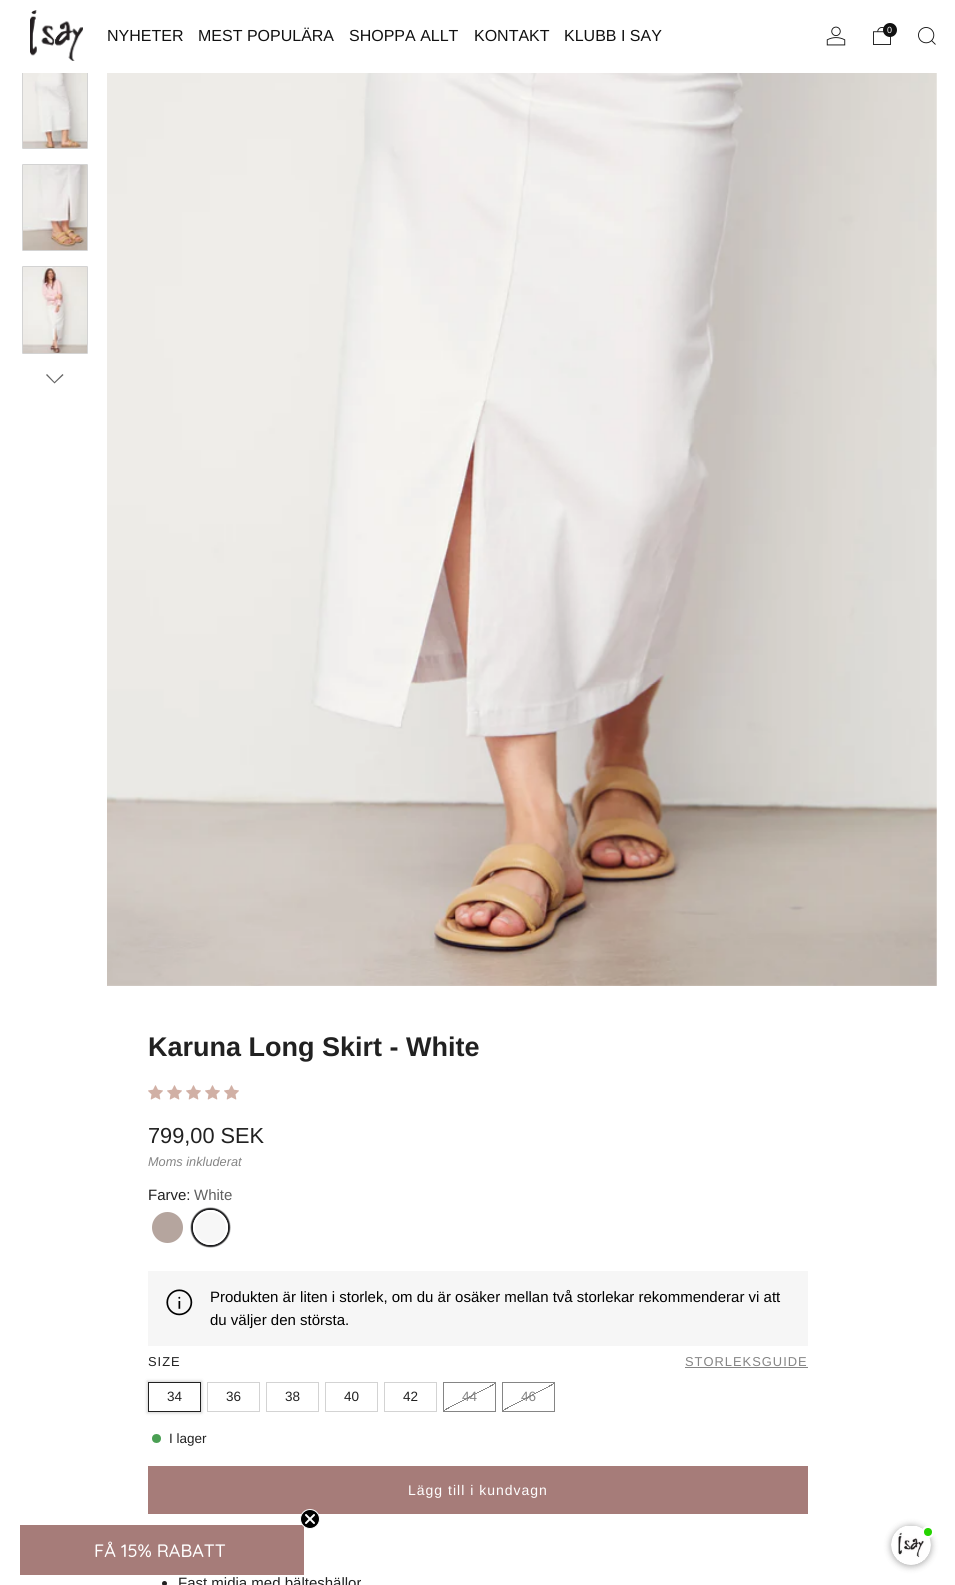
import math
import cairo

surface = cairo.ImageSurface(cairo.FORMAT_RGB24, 955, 1585)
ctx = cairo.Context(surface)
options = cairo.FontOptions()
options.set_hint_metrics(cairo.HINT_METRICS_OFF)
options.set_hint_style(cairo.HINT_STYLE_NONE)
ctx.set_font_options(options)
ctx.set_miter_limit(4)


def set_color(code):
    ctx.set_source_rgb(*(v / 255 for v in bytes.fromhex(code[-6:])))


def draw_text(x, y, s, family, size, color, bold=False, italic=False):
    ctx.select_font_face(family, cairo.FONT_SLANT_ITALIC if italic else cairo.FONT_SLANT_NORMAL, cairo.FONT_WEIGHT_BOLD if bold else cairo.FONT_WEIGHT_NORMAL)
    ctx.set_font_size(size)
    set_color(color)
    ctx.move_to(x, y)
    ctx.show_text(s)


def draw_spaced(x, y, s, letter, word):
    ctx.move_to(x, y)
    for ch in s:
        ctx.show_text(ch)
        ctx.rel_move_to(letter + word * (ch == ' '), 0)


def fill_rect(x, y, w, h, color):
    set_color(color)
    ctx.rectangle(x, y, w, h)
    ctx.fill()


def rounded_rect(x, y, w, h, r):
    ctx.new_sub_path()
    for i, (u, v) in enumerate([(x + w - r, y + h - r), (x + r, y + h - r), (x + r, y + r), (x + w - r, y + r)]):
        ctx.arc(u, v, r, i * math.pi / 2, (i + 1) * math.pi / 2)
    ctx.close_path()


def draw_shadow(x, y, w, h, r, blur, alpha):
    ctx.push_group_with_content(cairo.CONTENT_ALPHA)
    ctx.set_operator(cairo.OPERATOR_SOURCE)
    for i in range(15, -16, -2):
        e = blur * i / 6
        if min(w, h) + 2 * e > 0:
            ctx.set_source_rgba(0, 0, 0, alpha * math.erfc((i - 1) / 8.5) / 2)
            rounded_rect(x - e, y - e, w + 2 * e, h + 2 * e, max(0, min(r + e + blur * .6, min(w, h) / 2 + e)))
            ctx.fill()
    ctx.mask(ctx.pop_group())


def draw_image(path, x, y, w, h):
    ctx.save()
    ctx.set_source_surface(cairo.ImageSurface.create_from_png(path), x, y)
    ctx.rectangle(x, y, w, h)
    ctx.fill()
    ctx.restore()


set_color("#ffffff")
ctx.paint()
rounded_rect(22.5, 61.5, 65, 87, 0.5)
set_color("#d3d3d3")
ctx.set_line_width(1)
ctx.stroke()
fill_rect(22, 61, 66, 12, "#ffffff")
draw_image("assets/img1.png", 30, 10, 53, 51)
draw_text(107, 41, "NYHETER", "Liberation Sans", 16, "#111111")
draw_text(198, 41, "MEST POPULÄRA", "Liberation Sans", 16, "#111111")
draw_text(349, 41, "SHOPPA ALLT", "Liberation Sans", 16, "#111111")
draw_text(474, 41, "KONTAKT", "Liberation Sans", 16, "#111111")
draw_text(564, 41, "KLUBB I SAY", "Liberation Sans", 16, "#111111")
draw_image("assets/img2.png", 826, 26, 20, 20)
draw_image("assets/img3.png", 873, 27, 18, 18)
ctx.arc(890, 30, 7, 0, 2 * math.pi)
ctx.fill()
draw_text(887, 33, "0", "Liberation Sans", 9, "#ffffff")
draw_image("assets/img4.png", 918, 27, 18, 18)
draw_image("assets/img5.png", 23, 73, 64, 75)
rounded_rect(22.5, 164.5, 65, 86, 0.5)
set_color("#d3d3d3")
ctx.stroke()
draw_image("assets/img6.png", 23, 165, 64, 85)
rounded_rect(22.5, 266.5, 65, 87, 0.5)
ctx.stroke()
draw_image("assets/img7.png", 23, 267, 64, 86)
set_color("#646464")
ctx.new_path()
ctx.move_to(47, 374)
ctx.line_to(46, 375)
ctx.line_to(54.5, 383.5)
ctx.line_to(63.5, 375)
ctx.line_to(62.5, 374)
ctx.line_to(54.5, 382)
ctx.close_path()
ctx.fill()
draw_image("assets/img8.png", 107, 73, 830, 913)
draw_text(148, 1056, "Karuna Long Skirt - White", "Liberation Sans", 27, "#212121", bold=True)
draw_image("assets/img9.png", 148, 1085, 15, 15)
draw_image("assets/img9.png", 167, 1085, 15, 15)
draw_image("assets/img9.png", 186, 1085, 15, 15)
draw_image("assets/img9.png", 205, 1085, 15, 15)
draw_image("assets/img9.png", 224, 1085, 15, 15)
draw_text(148, 1143, "799,00 SEK", "Liberation Sans", 21.75, "#212121")
draw_text(148, 1166, "Moms inkluderat", "Liberation Sans", 12.75, "#858585", italic=True)
draw_text(148, 1200, "Farve:", "Liberation Sans", 15, "#212121")
draw_text(194, 1200, "White", "Liberation Sans", 15, "#606060")
set_color("#b5a59e")
ctx.new_path()
ctx.arc(167.5, 1227.5, 16.5, 0, 2 * math.pi)
ctx.fill_preserve()
set_color("#ffffff")
ctx.set_line_width(2)
ctx.stroke()
set_color("#f7f7f7")
ctx.arc(210, 1228, 16, 0, 2 * math.pi)
ctx.fill()
ctx.save()
ctx.set_fill_rule(cairo.FILL_RULE_EVEN_ODD)
ctx.new_path()
ctx.move_to(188, 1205)
ctx.line_to(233, 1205)
ctx.line_to(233, 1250)
ctx.line_to(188, 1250)
ctx.close_path()
ctx.move_to(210.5, 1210)
ctx.curve_to(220, 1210, 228, 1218, 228, 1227.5)
ctx.curve_to(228, 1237, 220, 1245, 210.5, 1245)
ctx.curve_to(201, 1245, 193, 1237, 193, 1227.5)
ctx.curve_to(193, 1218, 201, 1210, 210.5, 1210)
ctx.close_path()
ctx.clip()
set_color("#1d1d1f")
draw_shadow(191, 1208, 39, 39, 19.5, 0.5, 1)
ctx.restore()
ctx.arc(210.5, 1227.5, 16.5, 0, 2 * math.pi)
set_color("#ffffff")
ctx.stroke()
fill_rect(148, 1271, 660, 75, "#f6f6f6")
draw_image("assets/img10.png", 166, 1289, 27, 27)
draw_text(210, 1302, "Produkten är liten i storlek, om du är osäker mellan två storlekar rekommenderar vi att", "Liberation Sans", 15, "#000000")
draw_text(210, 1325, "du väljer den största.", "Liberation Sans", 15, "#000000")
ctx.set_font_size(12.9)
set_color("#212121")
draw_spaced(148, 1366, "SIZE", 1, 0)
set_color("#858585")
draw_spaced(685, 1366, "STORLEKSGUIDE", 1, 0)
fill_rect(685, 1367, 123, 1, "#858585")
ctx.save()
ctx.set_fill_rule(cairo.FILL_RULE_EVEN_ODD)
ctx.new_path()
ctx.move_to(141, 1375)
ctx.line_to(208, 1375)
ctx.line_to(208, 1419)
ctx.line_to(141, 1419)
ctx.close_path()
ctx.move_to(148, 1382)
ctx.line_to(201, 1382)
ctx.line_to(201, 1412)
ctx.line_to(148, 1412)
ctx.close_path()
ctx.clip()
set_color("#212121")
draw_shadow(147, 1381, 55, 32, 0, 1.5, 0.2)
ctx.restore()
ctx.rectangle(148.5, 1382.5, 52, 29)
set_color("#212121")
ctx.set_line_width(1)
ctx.stroke()
draw_text(167, 1401, "34", "Liberation Sans", 13.5, "#212121")
ctx.rectangle(207.5, 1382.5, 52, 29)
set_color("#d3d3d3")
ctx.stroke()
draw_text(226, 1401, "36", "Liberation Sans", 13.5, "#212121")
ctx.rectangle(266.5, 1382.5, 52, 29)
set_color("#d3d3d3")
ctx.stroke()
draw_text(285, 1401, "38", "Liberation Sans", 13.5, "#212121")
ctx.rectangle(325.5, 1382.5, 52, 29)
set_color("#d3d3d3")
ctx.stroke()
draw_text(344, 1401, "40", "Liberation Sans", 13.5, "#212121")
ctx.rectangle(384.5, 1382.5, 52, 29)
set_color("#d3d3d3")
ctx.stroke()
draw_text(403, 1401, "42", "Liberation Sans", 13.5, "#212121")
ctx.rectangle(443.5, 1382.5, 52, 29)
set_color("#858585")
ctx.stroke()
gradient = cairo.LinearGradient(481, 1419, 458, 1375)
gradient.add_color_stop_rgba(0.49, 0.129, 0.129, 0.129, 0)
gradient.add_color_stop_rgba(0.49, 0.129, 0.129, 0.129, 0.55)
gradient.add_color_stop_rgba(0.51, 0.129, 0.129, 0.129, 0.55)
gradient.add_color_stop_rgba(0.51, 0.129, 0.129, 0.129, 0)
ctx.set_source(gradient)
ctx.rectangle(444, 1383, 51, 28)
ctx.fill()
draw_text(462, 1401, "44", "Liberation Sans", 13.5, "#858585")
ctx.rectangle(502.5, 1382.5, 52, 29)
ctx.stroke()
gradient = cairo.LinearGradient(540, 1419, 517, 1375)
gradient.add_color_stop_rgba(0.49, 0.129, 0.129, 0.129, 0)
gradient.add_color_stop_rgba(0.49, 0.129, 0.129, 0.129, 0.55)
gradient.add_color_stop_rgba(0.51, 0.129, 0.129, 0.129, 0.55)
gradient.add_color_stop_rgba(0.51, 0.129, 0.129, 0.129, 0)
ctx.set_source(gradient)
ctx.rectangle(503, 1383, 51, 28)
ctx.fill()
draw_text(521, 1401, "46", "Liberation Sans", 13.5, "#858585")
set_color("#4a9f53")
ctx.new_path()
ctx.arc(156.5, 1438.5, 4.5, 0, 2 * math.pi)
ctx.fill()
draw_text(169, 1443, "I lager", "Liberation Sans", 13.5, "#212121")
fill_rect(148, 1466, 660, 48, "#a67c79")
ctx.set_font_size(14)
set_color("#ffffff")
draw_spaced(408, 1495, "Lägg till i kundvagn", 1, 0)
set_color("#212121")
ctx.new_path()
ctx.arc(164.5, 1583.5, 2.5, 0, 2 * math.pi)
ctx.fill()
draw_text(178, 1588, "Fast midja med bälteshällor", "Liberation Sans", 15, "#212121")
set_color("#000000")
draw_shadow(891, 1526, 40, 40, 20, 3.5, 0.35)
draw_image("assets/img11.png", 891, 1526, 40, 39)
set_color("#25d300")
ctx.arc(928, 1532, 5, 0, 2 * math.pi)
ctx.fill_preserve()
set_color("#ffffff")
ctx.set_line_width(2)
ctx.stroke()
fill_rect(20, 1525, 284, 50, "#a67c79")
draw_image("assets/img12.png", 300, 1509, 20, 20)
draw_text(94, 1557, "FÅ 15% RABATT", "Quicksand Medium", 18, "#ffffff")
surface.write_to_png("output.png")
